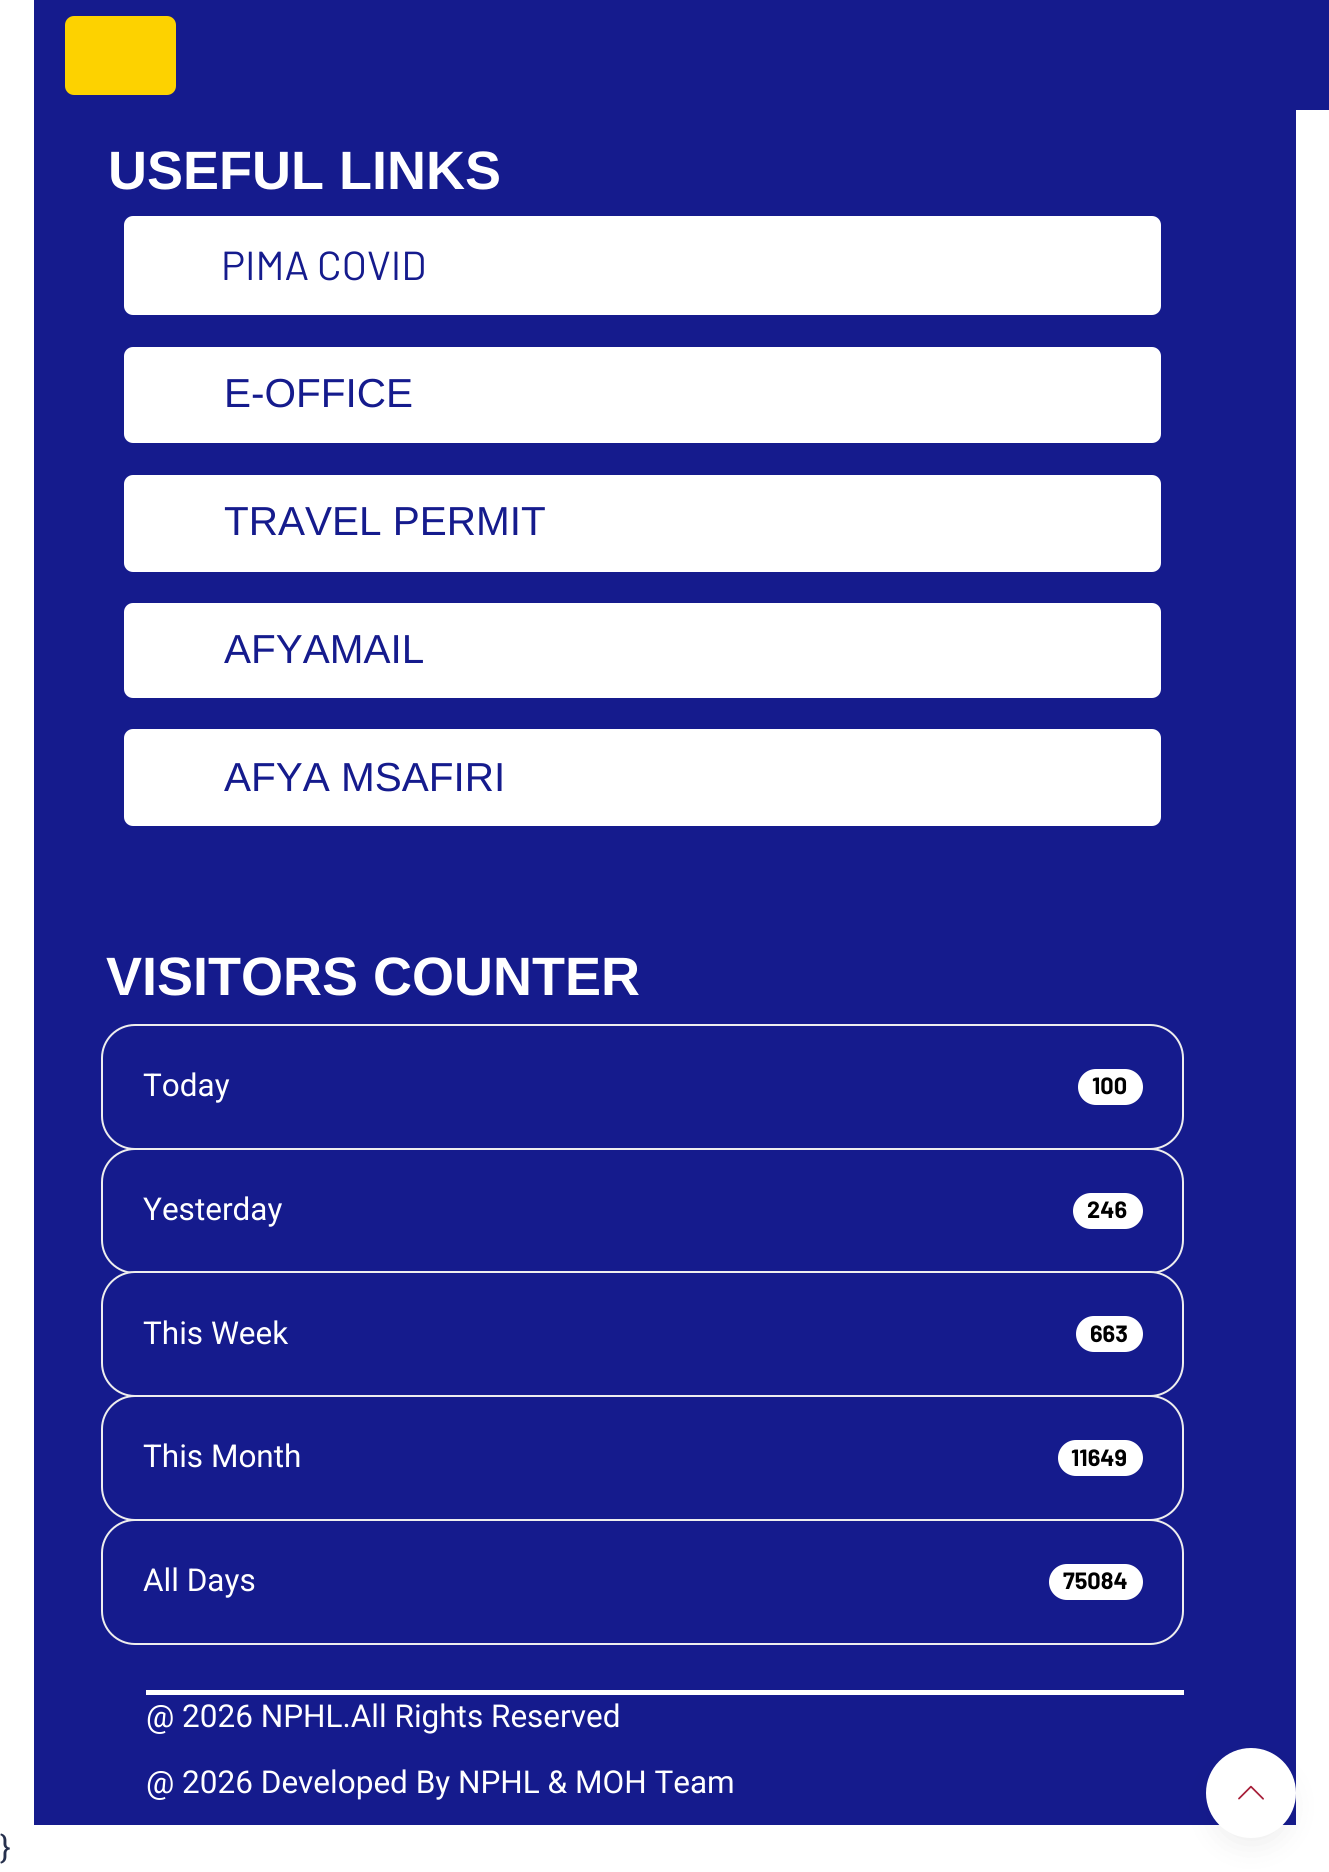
import math
import cairo

surface = cairo.ImageSurface(cairo.FORMAT_RGB24, 1329, 1872)
ctx = cairo.Context(surface)
options = cairo.FontOptions()
options.set_hint_metrics(cairo.HINT_METRICS_OFF)
options.set_hint_style(cairo.HINT_STYLE_NONE)
ctx.set_font_options(options)
ctx.set_miter_limit(4)


def set_color(code):
    ctx.set_source_rgb(*(v / 255 for v in bytes.fromhex(code[-6:])))


def draw_text(x, y, s, family, size, color, bold=False, italic=False):
    ctx.select_font_face(family, cairo.FONT_SLANT_ITALIC if italic else cairo.FONT_SLANT_NORMAL, cairo.FONT_WEIGHT_BOLD if bold else cairo.FONT_WEIGHT_NORMAL)
    ctx.set_font_size(size)
    set_color(color)
    ctx.move_to(x, y)
    ctx.show_text(s)


def fill_rect(x, y, w, h, color):
    set_color(color)
    ctx.rectangle(x, y, w, h)
    ctx.fill()


def rounded_rect(x, y, w, h, r):
    ctx.new_sub_path()
    for i, (u, v) in enumerate([(x + w - r, y + h - r), (x + r, y + h - r), (x + r, y + r), (x + w - r, y + r)]):
        ctx.arc(u, v, r, i * math.pi / 2, (i + 1) * math.pi / 2)
    ctx.close_path()


def draw_shadow(x, y, w, h, r, blur, alpha):
    ctx.push_group_with_content(cairo.CONTENT_ALPHA)
    ctx.set_operator(cairo.OPERATOR_SOURCE)
    for i in range(15, -16, -2):
        e = blur * i / 6
        if min(w, h) + 2 * e > 0:
            ctx.set_source_rgba(0, 0, 0, alpha * math.erfc((i - 1) / 8.5) / 2)
            rounded_rect(x - e, y - e, w + 2 * e, h + 2 * e, max(0, min(r + e + blur * .6, min(w, h) / 2 + e)))
            ctx.fill()
    ctx.mask(ctx.pop_group())


def draw_image(path, x, y, w, h):
    ctx.save()
    ctx.set_source_surface(cairo.ImageSurface.create_from_png(path), x, y)
    ctx.rectangle(x, y, w, h)
    ctx.fill()
    ctx.restore()


set_color("#ffffff")
ctx.paint()
fill_rect(34, 0, 1295, 110, "#151b8d")
set_color("#fdd200")
rounded_rect(65, 16, 111, 79, 9)
ctx.fill()
fill_rect(34, 110, 1262, 1715, "#151b8d")
draw_text(108, 189, "USEFUL LINKS", "Liberation Sans", 54, "#ffffff", bold=True)
rounded_rect(124, 216, 1037, 99, 9)
ctx.fill()
draw_text(221, 280, "PIMA COVID", "Barlow", 40.5, "#151b8d")
set_color("#ffffff")
rounded_rect(124, 347, 1037, 96, 9)
ctx.fill()
draw_text(224, 407, "E-OFFICE", "Liberation Sans", 40.5, "#151b8d")
set_color("#ffffff")
rounded_rect(124, 475, 1037, 97, 9)
ctx.fill()
draw_text(224, 535, "TRAVEL PERMIT", "Liberation Sans", 40.5, "#151b8d")
set_color("#ffffff")
rounded_rect(124, 603, 1037, 95, 9)
ctx.fill()
draw_text(224, 663, "AFYAMAIL", "Liberation Sans", 40.5, "#151b8d")
set_color("#ffffff")
rounded_rect(124, 729, 1037, 97, 9)
ctx.fill()
draw_text(224, 791, "AFYA MSAFIRI", "Liberation Sans", 40.5, "#151b8d")
draw_text(106, 995, "VISITORS COUNTER", "Liberation Sans", 54, "#ffffff", bold=True)
rounded_rect(102, 1025, 1081, 124, 33)
set_color("#eeeeee")
ctx.stroke()
draw_text(143, 1096, "Today", "Roboto", 31.5, "#ffffff")
rounded_rect(1078, 1069, 65, 36, 18)
ctx.fill()
draw_text(1092, 1094, "100", "Barlow", 23.5, "#000000", bold=True)
set_color("#151b8d")
rounded_rect(102, 1149, 1081, 124, 33)
ctx.fill_preserve()
set_color("#eeeeee")
ctx.stroke()
draw_text(143, 1220, "Yesterday", "Roboto", 31.5, "#ffffff")
rounded_rect(1073, 1193, 70, 36, 18)
ctx.fill()
draw_text(1087, 1218, "246", "Barlow", 23.5, "#000000", bold=True)
set_color("#151b8d")
rounded_rect(102, 1272, 1081, 124, 33)
ctx.fill_preserve()
set_color("#eeeeee")
ctx.stroke()
draw_text(143, 1344, "This Week", "Roboto", 31.5, "#ffffff")
rounded_rect(1076, 1316, 67, 36, 18)
ctx.fill()
draw_text(1090, 1342, "663", "Barlow", 23.5, "#000000", bold=True)
set_color("#151b8d")
rounded_rect(102, 1396, 1081, 124, 33)
ctx.fill_preserve()
set_color("#eeeeee")
ctx.stroke()
draw_text(143, 1467, "This Month", "Roboto", 31.5, "#ffffff")
rounded_rect(1058, 1440, 85, 36, 18)
ctx.fill()
draw_text(1071, 1466, "11649", "Barlow", 23.5, "#000000", bold=True)
set_color("#151b8d")
rounded_rect(102, 1520, 1081, 124, 33)
ctx.fill_preserve()
set_color("#eeeeee")
ctx.stroke()
draw_text(143, 1591, "All Days", "Roboto", 31.5, "#ffffff")
rounded_rect(1049, 1564, 94, 36, 18)
ctx.fill()
draw_text(1063, 1589, "75084", "Barlow", 23.5, "#000000", bold=True)
fill_rect(146, 1690, 1038, 5, "#ffffff")
draw_text(146, 1727, "@ 2026 NPHL.All Rights Reserved", "Roboto", 31.5, "#ffffff")
draw_text(146, 1793, "@ 2026 Developed By NPHL & MOH Team", "Roboto", 31.5, "#ffffff")
set_color("#000000")
draw_shadow(1220, 1775, 63, 63, 31.5, 17, 0.1)
set_color("#ffffff")
ctx.arc(1251, 1793, 45, 0, 2 * math.pi)
ctx.fill()
draw_image("assets/img1.png", 1238, 1785, 26, 15)
draw_text(0, 1858, "}", "Roboto", 31.5, "#26304d")
surface.write_to_png("output.png")
